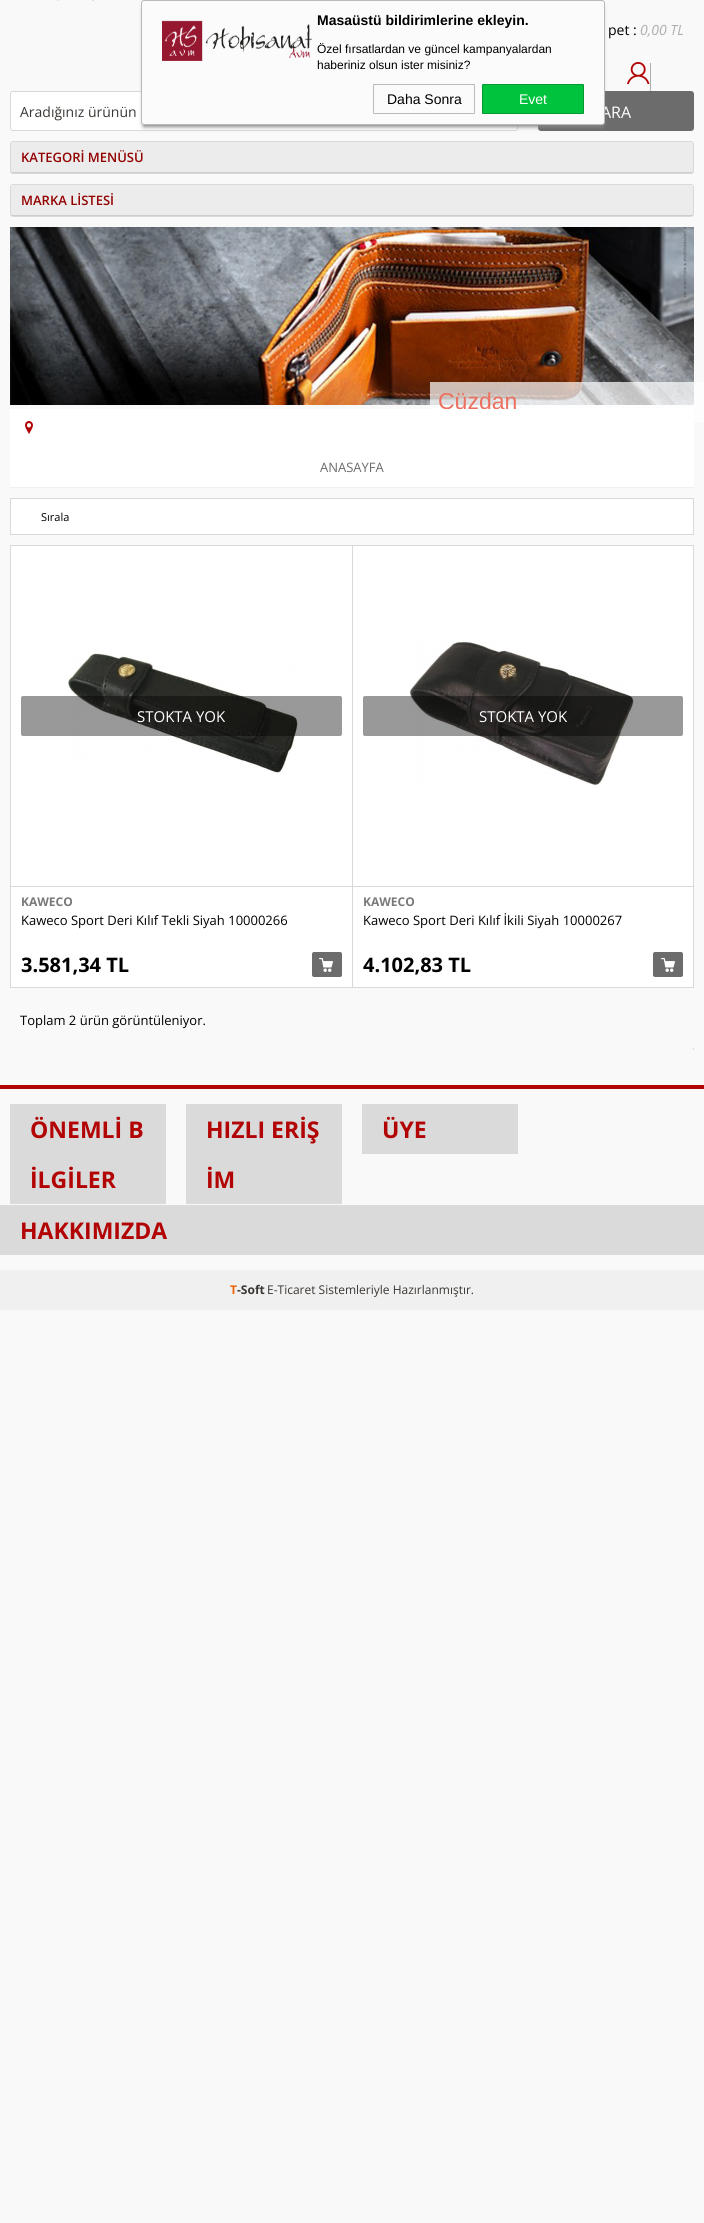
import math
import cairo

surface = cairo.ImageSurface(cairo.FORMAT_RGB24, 704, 2223)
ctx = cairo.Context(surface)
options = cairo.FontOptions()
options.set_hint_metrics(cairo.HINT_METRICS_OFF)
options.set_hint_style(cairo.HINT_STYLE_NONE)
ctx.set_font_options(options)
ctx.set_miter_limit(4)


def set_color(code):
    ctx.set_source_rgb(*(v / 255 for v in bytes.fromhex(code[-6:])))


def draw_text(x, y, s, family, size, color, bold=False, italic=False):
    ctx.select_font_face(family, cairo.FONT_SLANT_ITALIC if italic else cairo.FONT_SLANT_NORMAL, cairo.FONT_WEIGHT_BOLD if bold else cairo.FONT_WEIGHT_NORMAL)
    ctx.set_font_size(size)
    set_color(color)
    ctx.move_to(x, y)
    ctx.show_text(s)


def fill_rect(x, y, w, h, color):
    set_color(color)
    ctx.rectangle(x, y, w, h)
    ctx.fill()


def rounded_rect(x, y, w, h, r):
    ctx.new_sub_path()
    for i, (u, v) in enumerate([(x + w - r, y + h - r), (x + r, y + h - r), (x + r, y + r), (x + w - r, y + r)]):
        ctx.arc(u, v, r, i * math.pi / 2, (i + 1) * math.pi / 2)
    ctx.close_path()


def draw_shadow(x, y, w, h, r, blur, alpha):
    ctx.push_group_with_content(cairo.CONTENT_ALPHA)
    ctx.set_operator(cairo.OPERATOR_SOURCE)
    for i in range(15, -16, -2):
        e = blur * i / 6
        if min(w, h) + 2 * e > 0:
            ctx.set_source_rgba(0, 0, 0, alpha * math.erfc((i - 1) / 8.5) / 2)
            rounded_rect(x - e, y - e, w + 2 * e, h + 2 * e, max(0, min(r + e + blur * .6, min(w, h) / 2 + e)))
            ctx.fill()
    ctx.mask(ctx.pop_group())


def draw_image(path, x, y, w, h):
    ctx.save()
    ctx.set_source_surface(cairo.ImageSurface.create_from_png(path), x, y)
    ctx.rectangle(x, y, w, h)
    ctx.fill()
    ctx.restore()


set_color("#f9f9f9")
ctx.paint()
draw_image("assets/img1.png", 57, 0, 2, 1)
draw_image("assets/img2.png", 92, 0, 2, 1)
set_color("#ffffff")
rounded_rect(10.5, 91.5, 507, 39, 2.5)
ctx.fill_preserve()
set_color("#d9d9d9")
ctx.set_line_width(1)
ctx.stroke()
set_color("#6c6c6c")
rounded_rect(538, 91, 156, 40, 3)
ctx.fill()
set_color("#888888")
draw_shadow(143, 6, 460, 121, 1, 2, 1)
draw_text(601, 118, "ARA", "Open Sans", 16, "#ffffff")
set_color("#fbfbfb")
rounded_rect(141.5, 0.5, 463, 124, 2.5)
ctx.fill_preserve()
set_color("#bababa")
ctx.stroke()
draw_image("assets/img3.png", 162, 20, 150, 41)
draw_text(317, 25, "Masaüstü bildirimlerine ekleyin.", "Liberation Sans", 14, "#000000", bold=True)
draw_text(317, 53, "Özel fırsatlardan ve güncel kampanyalardan", "Liberation Sans", 12, "#000000")
draw_text(317, 69, "haberiniz olsun ister misiniz?", "Liberation Sans", 12, "#000000")
rounded_rect(373.5, 84.5, 101, 29, 0.5)
set_color("#bababa")
ctx.stroke()
draw_text(387, 104, "Daha Sonra", "Liberation Sans", 14, "#000000")
set_color("#00c33d")
rounded_rect(482.5, 84.5, 101, 29, 0.5)
ctx.fill_preserve()
set_color("#059833")
ctx.stroke()
draw_text(519, 104, "Evet", "Liberation Sans", 14, "#ffffff")
draw_text(608, 35, "pet :", "Open Sans", 14, "#000000")
draw_text(640, 35, "0,00 TL", "Open Sans", 14, "#aeaeae", italic=True)
draw_image("assets/img4.png", 627, 62, 23, 22)
fill_rect(650, 63, 1, 28, "#aeaeae")
draw_text(20, 117, "Aradığınız ürünün", "Open Sans", 14, "#3b3734")
rounded_rect(10.5, 141.5, 683, 32, 2.5)
set_color("#d9d9d9")
ctx.stroke()
fill_rect(11, 172, 682, 1, "#cdcdcd")
fill_rect(11, 142, 682, 30, "#ececec")
draw_text(21, 162, "KATEGORİ MENÜSÜ", "Open Sans SemiBold", 13, "#930000")
rounded_rect(10.5, 184.5, 683, 32, 2.5)
set_color("#d9d9d9")
ctx.stroke()
fill_rect(11, 215, 682, 1, "#cdcdcd")
fill_rect(11, 185, 682, 30, "#ececec")
draw_text(21, 205, "MARKA LİSTESİ", "Open Sans SemiBold", 13, "#930000")
draw_image("assets/img5.png", 10, 227, 684, 178)
ctx.set_source_rgba(1, 1, 1, 0.7)
ctx.rectangle(430, 382, 274, 40)
ctx.fill()
draw_text(438, 409, "Cüzdan", "Liberation Sans", 23, "#ec705e")
fill_rect(10, 409, 684, 78, "#ffffff")
fill_rect(10, 487, 684, 1, "#f0f0f0")
draw_image("assets/img6.png", 25, 421, 8, 13)
draw_text(320, 472, "ANASAYFA", "Open Sans", 13, "#6c6c6c")
set_color("#ffffff")
ctx.rectangle(10.5, 498.5, 683, 36)
ctx.fill_preserve()
set_color("#d9d9d9")
ctx.stroke()
draw_text(41, 521, "Sırala", "Open Sans", 11, "#000000")
fill_rect(10, 545, 684, 1, "#d9d9d9")
fill_rect(10, 545, 1, 443, "#d9d9d9")
fill_rect(11, 546, 341, 441, "#ffffff")
fill_rect(352, 546, 1, 442, "#d9d9d9")
fill_rect(11, 987, 342, 1, "#d9d9d9")
fill_rect(11, 886, 341, 1, "#d9d9d9")
draw_image("assets/img7.png", 68, 652, 230, 121)
ctx.set_source_rgba(0, 0, 0, 0.4)
rounded_rect(21, 696, 321, 40, 2)
ctx.fill()
draw_text(137, 722, "STOKTA YOK", "Open Sans", 15, "#ffffff")
draw_text(21, 906, "KAWECO", "Open Sans", 12, "#797979", bold=True)
draw_text(21, 925, "Kaweco Sport Deri Kılıf Tekli Siyah 10000266", "Open Sans", 13, "#000000")
draw_text(21, 972, "3.581,34 TL", "Open Sans", 20, "#000000", bold=True)
set_color("#6c6c6c")
rounded_rect(312, 952, 30, 25, 2)
ctx.fill()
draw_image("assets/img8.png", 319, 958, 14, 14)
fill_rect(353, 546, 340, 441, "#ffffff")
fill_rect(693, 546, 1, 442, "#d9d9d9")
fill_rect(353, 987, 341, 1, "#d9d9d9")
fill_rect(353, 886, 340, 1, "#d9d9d9")
draw_image("assets/img9.png", 409, 641, 225, 144)
ctx.set_source_rgba(0, 0, 0, 0.4)
rounded_rect(363, 696, 320, 40, 2)
ctx.fill()
draw_text(479, 722, "STOKTA YOK", "Open Sans", 15, "#ffffff")
draw_text(363, 906, "KAWECO", "Open Sans", 12, "#797979", bold=True)
draw_text(363, 925, "Kaweco Sport Deri Kılıf İkili Siyah 10000267", "Open Sans", 13, "#000000")
draw_text(363, 972, "4.102,83 TL", "Open Sans", 20, "#000000", bold=True)
set_color("#6c6c6c")
rounded_rect(653, 952, 30, 25, 2)
ctx.fill()
draw_image("assets/img8.png", 661, 958, 14, 14)
draw_text(20, 1025, "Toplam 2 ürün görüntüleniyor.", "Open Sans", 13, "#000000")
fill_rect(693, 1048, 1, 2, "#d9d9d9")
fill_rect(0, 1085, 704, 4, "#b20404")
fill_rect(10, 1104, 156, 100, "#dadada")
draw_text(30, 1138, "ÖNEMLİ B", "Open Sans", 23, "#b20404", bold=True)
draw_text(30, 1188, "İLGİLER", "Open Sans", 23, "#b20404", bold=True)
fill_rect(186, 1104, 156, 100, "#dadada")
draw_text(206, 1138, "HIZLI ERİŞ", "Open Sans", 23, "#b20404", bold=True)
draw_text(206, 1188, "İM", "Open Sans", 23, "#b20404", bold=True)
fill_rect(362, 1104, 156, 50, "#dadada")
draw_text(382, 1138, "ÜYE", "Open Sans", 23, "#b20404", bold=True)
fill_rect(0, 1205, 704, 50, "#dadada")
draw_text(20, 1239, "HAKKIMIZDA", "Open Sans", 23, "#b20404", bold=True)
fill_rect(0, 1270, 704, 40, "#f0f0f0")
draw_text(230, 1294, "T", "Open Sans", 12, "#ec6408", bold=True)
draw_text(237, 1294, "-Soft", "Open Sans", 12, "#3b3734", bold=True)
draw_text(267, 1294, "E-Ticaret Sistemleriyle Hazırlanmıştır.", "Open Sans", 12, "#3b3734")
surface.write_to_png("output.png")
